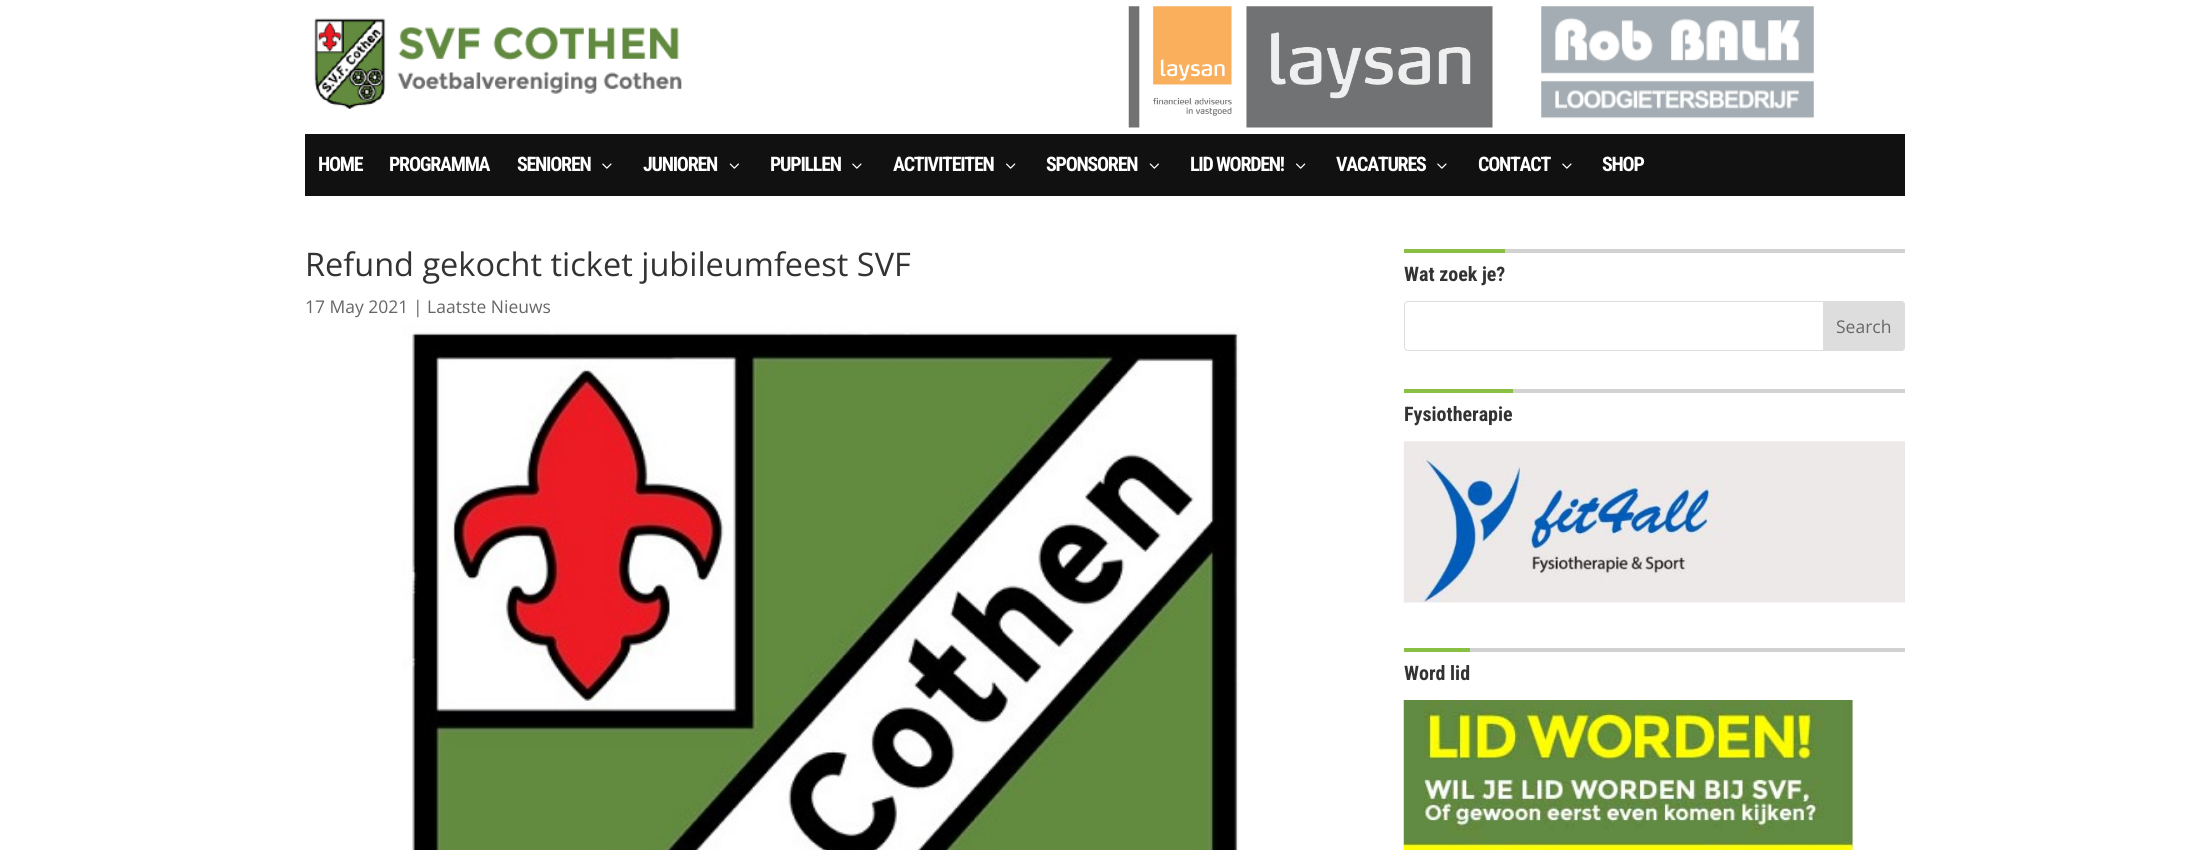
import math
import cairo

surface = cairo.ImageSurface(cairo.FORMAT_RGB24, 2209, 850)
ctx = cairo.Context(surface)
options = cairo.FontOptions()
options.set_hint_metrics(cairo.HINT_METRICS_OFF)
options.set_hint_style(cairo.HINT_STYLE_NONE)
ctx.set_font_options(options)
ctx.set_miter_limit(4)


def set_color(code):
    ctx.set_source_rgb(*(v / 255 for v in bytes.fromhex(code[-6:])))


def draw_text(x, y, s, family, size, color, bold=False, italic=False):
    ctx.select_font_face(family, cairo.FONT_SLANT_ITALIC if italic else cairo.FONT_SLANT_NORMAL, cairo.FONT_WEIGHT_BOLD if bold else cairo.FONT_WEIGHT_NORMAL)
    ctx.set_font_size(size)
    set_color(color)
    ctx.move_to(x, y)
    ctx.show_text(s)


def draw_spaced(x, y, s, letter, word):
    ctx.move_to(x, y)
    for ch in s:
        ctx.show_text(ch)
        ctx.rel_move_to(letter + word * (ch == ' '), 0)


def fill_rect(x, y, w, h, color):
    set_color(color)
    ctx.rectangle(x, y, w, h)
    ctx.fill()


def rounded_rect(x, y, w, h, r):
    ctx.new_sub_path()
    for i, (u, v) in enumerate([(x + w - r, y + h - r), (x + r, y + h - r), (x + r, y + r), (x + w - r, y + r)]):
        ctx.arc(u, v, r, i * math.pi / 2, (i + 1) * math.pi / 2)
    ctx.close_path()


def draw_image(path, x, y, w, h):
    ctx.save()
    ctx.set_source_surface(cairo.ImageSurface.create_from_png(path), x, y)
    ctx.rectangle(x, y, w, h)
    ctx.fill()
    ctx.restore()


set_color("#ffffff")
ctx.paint()
draw_image("assets/img1.png", 314, 18, 368, 91)
draw_image("assets/img2.png", 1128, 6, 365, 122)
draw_image("assets/img3.png", 1541, 6, 273, 113)
fill_rect(305, 134, 1600, 62, "#111111")
ctx.select_font_face("Roboto Condensed", cairo.FONT_SLANT_NORMAL, cairo.FONT_WEIGHT_BOLD)
ctx.set_font_size(20)
set_color("#ffffff")
draw_spaced(318, 171, "HOME", -1.25, 0)
draw_spaced(389, 171, "PROGRAMMA", -1.25, 0)
draw_spaced(517, 171, "SENIOREN", -1.25, 0)
draw_image("assets/img4.png", 602, 163, 10, 6)
draw_spaced(643, 171, "JUNIOREN", -1.25, 0)
draw_image("assets/img5.png", 729, 163, 10, 6)
draw_spaced(770, 171, "PUPILLEN", -1.25, 0)
draw_image("assets/img4.png", 852, 163, 10, 6)
draw_spaced(893, 171, "ACTIVITEITEN", -1.25, 0)
draw_image("assets/img6.png", 1006, 163, 10, 6)
draw_spaced(1046, 171, "SPONSOREN", -1.25, 0)
draw_image("assets/img5.png", 1149, 163, 10, 6)
draw_spaced(1190, 171, "LID WORDEN!", -1.25, 0)
draw_image("assets/img6.png", 1296, 163, 10, 6)
draw_spaced(1336, 171, "VACATURES", -1.25, 0)
draw_image("assets/img4.png", 1437, 163, 10, 6)
draw_spaced(1478, 171, "CONTACT", -1.25, 0)
draw_image("assets/img4.png", 1562, 163, 10, 6)
draw_spaced(1602, 171, "SHOP", -1.25, 0)
draw_text(305, 276, "Refund gekocht ticket jubileumfeest SVF", "Open Sans", 32.5, "#333333")
draw_text(305, 313, "17 May 2021 | Laatste Nieuws", "Open Sans", 17.5, "#666666")
draw_image("assets/img7.png", 402, 325, 837, 525)
fill_rect(1505, 249, 400, 4, "#d2d2d2")
fill_rect(1404, 249, 101, 4, "#89bf42")
draw_text(1404, 281, "Wat zoek je?", "Roboto Condensed", 20, "#333333", bold=True)
rounded_rect(1404.5, 301.5, 500, 49, 3.5)
set_color("#dddddd")
ctx.set_line_width(1)
ctx.stroke()
ctx.new_path()
ctx.move_to(1823.5, 301.5)
ctx.line_to(1901, 301.5)
ctx.curve_to(1903, 301.5, 1904.5, 303, 1904.5, 305)
ctx.line_to(1904.5, 347)
ctx.curve_to(1904.5, 349, 1903, 350.5, 1901, 350.5)
ctx.line_to(1823.5, 350.5)
ctx.close_path()
ctx.fill_preserve()
ctx.stroke()
draw_text(1836, 333, "Search", "Open Sans", 17.5, "#666666")
fill_rect(1513, 389, 392, 4, "#d2d2d2")
fill_rect(1404, 389, 109, 4, "#89bf42")
draw_text(1404, 421, "Fysiotherapie", "Roboto Condensed", 20, "#333333", bold=True)
draw_image("assets/img8.png", 1403, 441, 502, 162)
fill_rect(1470, 648, 435, 4, "#d2d2d2")
fill_rect(1404, 648, 66, 4, "#89bf42")
draw_text(1404, 680, "Word lid", "Roboto Condensed", 20, "#333333", bold=True)
draw_image("assets/img9.png", 1403, 700, 451, 150)
surface.write_to_png("output.png")
